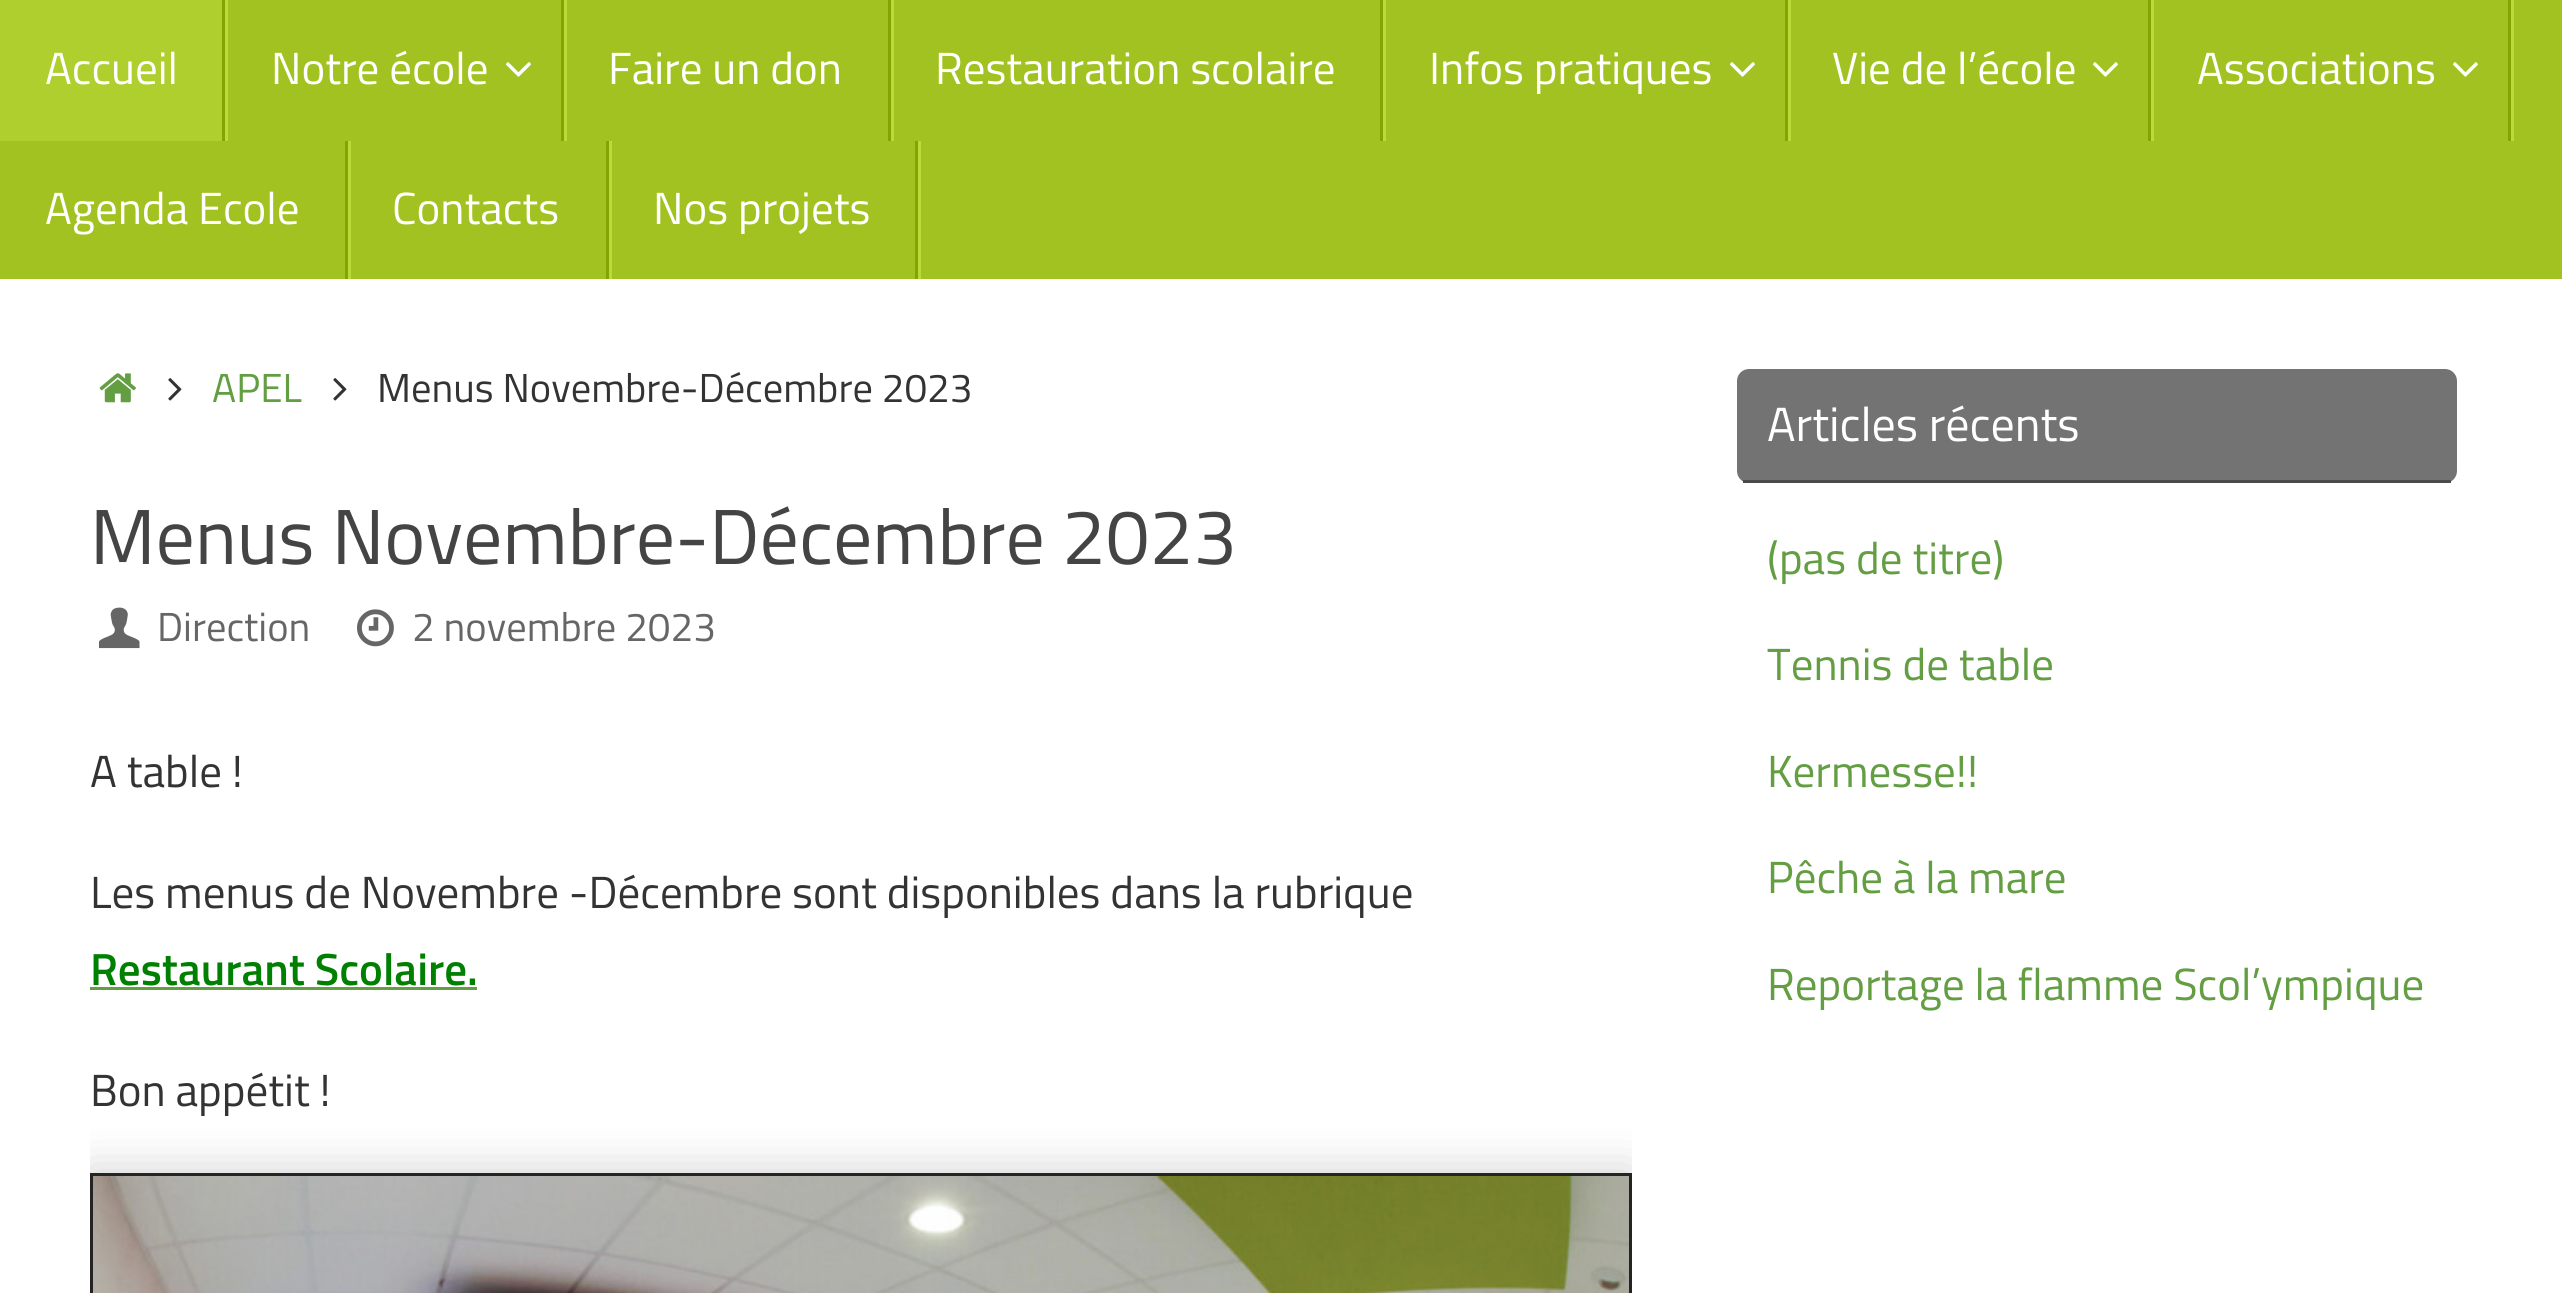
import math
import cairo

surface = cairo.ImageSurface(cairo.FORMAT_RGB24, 2562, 1293)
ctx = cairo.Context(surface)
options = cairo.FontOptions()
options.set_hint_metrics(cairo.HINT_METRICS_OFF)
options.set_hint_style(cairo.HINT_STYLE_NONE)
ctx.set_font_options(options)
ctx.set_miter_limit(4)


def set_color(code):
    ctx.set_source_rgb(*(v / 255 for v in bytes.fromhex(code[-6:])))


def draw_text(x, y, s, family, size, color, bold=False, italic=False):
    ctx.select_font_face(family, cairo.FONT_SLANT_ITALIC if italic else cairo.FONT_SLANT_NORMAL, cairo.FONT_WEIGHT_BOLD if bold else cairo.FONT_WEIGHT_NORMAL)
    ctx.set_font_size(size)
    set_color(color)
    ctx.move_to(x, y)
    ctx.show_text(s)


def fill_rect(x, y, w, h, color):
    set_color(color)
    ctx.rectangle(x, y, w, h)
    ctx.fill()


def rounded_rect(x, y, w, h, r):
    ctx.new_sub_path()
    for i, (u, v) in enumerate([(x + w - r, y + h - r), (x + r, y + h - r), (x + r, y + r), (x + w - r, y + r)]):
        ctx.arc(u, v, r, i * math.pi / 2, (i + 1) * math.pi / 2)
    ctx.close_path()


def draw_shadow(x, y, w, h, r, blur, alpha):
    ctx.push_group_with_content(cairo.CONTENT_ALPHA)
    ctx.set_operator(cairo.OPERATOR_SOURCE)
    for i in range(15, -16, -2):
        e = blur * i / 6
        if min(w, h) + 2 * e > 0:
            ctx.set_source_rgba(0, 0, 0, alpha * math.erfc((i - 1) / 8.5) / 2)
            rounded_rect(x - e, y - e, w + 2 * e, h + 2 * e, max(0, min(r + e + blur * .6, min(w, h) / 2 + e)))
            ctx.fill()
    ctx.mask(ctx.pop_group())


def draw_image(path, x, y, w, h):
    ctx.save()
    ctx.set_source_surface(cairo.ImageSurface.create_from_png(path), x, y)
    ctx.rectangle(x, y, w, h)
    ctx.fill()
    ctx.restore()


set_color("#ffffff")
ctx.paint()
fill_rect(0, 0, 2562, 279, "#a2c222")
fill_rect(0, 0, 222, 141, "#afcf2f")
fill_rect(225, 0, 3, 141, "#bada3a")
fill_rect(222, 0, 3, 141, "#84a404")
draw_text(45, 84, "Accueil", "Titillium Web", 45, "#ffffff")
fill_rect(564, 0, 3, 141, "#bada3a")
fill_rect(561, 0, 3, 141, "#84a404")
draw_text(271, 84, "Notre école", "Titillium Web", 45, "#ffffff")
draw_image("assets/img1.png", 506, 62, 25, 15)
fill_rect(891, 0, 3, 141, "#bada3a")
fill_rect(888, 0, 3, 141, "#84a404")
draw_text(608, 84, "Faire un don", "Titillium Web", 45, "#ffffff")
fill_rect(1383, 0, 3, 141, "#bada3a")
fill_rect(1380, 0, 3, 141, "#84a404")
draw_text(935, 84, "Restauration scolaire", "Titillium Web", 45, "#ffffff")
fill_rect(1788, 0, 3, 141, "#bada3a")
fill_rect(1785, 0, 3, 141, "#84a404")
draw_text(1429, 84, "Infos pratiques", "Titillium Web", 45, "#ffffff")
draw_image("assets/img1.png", 1730, 62, 25, 15)
fill_rect(2151, 0, 3, 141, "#bada3a")
fill_rect(2148, 0, 3, 141, "#84a404")
draw_text(1832, 84, "Vie de l’école", "Titillium Web", 45, "#ffffff")
draw_image("assets/img1.png", 2093, 62, 25, 15)
fill_rect(2511, 0, 3, 141, "#bada3a")
fill_rect(2508, 0, 3, 141, "#84a404")
draw_text(2197, 84, "Associations", "Titillium Web", 45, "#ffffff")
draw_image("assets/img1.png", 2453, 62, 25, 15)
fill_rect(348, 141, 3, 138, "#bada3a")
fill_rect(345, 141, 3, 138, "#84a404")
draw_text(45, 224, "Agenda Ecole", "Titillium Web", 45, "#ffffff")
fill_rect(609, 141, 3, 138, "#bada3a")
fill_rect(606, 141, 3, 138, "#84a404")
draw_text(392, 224, "Contacts", "Titillium Web", 45, "#ffffff")
fill_rect(918, 141, 3, 138, "#bada3a")
fill_rect(915, 141, 3, 138, "#84a404")
draw_text(653, 224, "Nos projets", "Titillium Web", 45, "#ffffff")
draw_image("assets/img2.png", 99, 373, 37, 30)
draw_image("assets/img3.png", 168, 378, 14, 23)
draw_text(212, 402, "APEL", "Titillium Web", 40.5, "#639e43")
draw_image("assets/img3.png", 333, 378, 14, 23)
draw_text(377, 402, "Menus Novembre-Décembre 2023", "Titillium Web", 40.5, "#333333")
draw_text(90, 564, "Menus Novembre-Décembre 2023", "Titillium Web", 78, "#444444")
draw_image("assets/img4.png", 99, 607, 41, 42)
draw_text(157, 641, "Direction", "Titillium Web", 40.5, "#666666")
draw_image("assets/img5.png", 357, 609, 37, 38)
draw_text(412, 641, "2 novembre 2023", "Titillium Web", 40.5, "#666666")
draw_text(90, 787, "A table !", "Titillium Web", 45, "#333333")
draw_text(90, 908, "Les menus de Novembre -Décembre sont disponibles dans la rubrique", "Titillium Web", 45, "#333333")
draw_text(90, 985, "Restaurant Scolaire.", "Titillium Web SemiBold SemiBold", 45, "#008000")
fill_rect(90, 987, 387, 3, "#639e43")
draw_text(90, 1106, "Bon appétit !", "Titillium Web", 45, "#333333")
ctx.save()
ctx.rectangle(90, 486, 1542, 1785)
ctx.clip()
ctx.rectangle(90, 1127, 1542, 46)
ctx.clip()
set_color("#cdcdcd")
draw_shadow(90, 1173, 1542, 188, 0, 22.5, 1)
ctx.restore()
ctx.rectangle(91.5, 1174.5, 1539, 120)
set_color("#242424")
ctx.set_line_width(3)
ctx.stroke()
draw_image("assets/img6.png", 93, 1176, 1536, 117)
set_color("#737373")
rounded_rect(1737, 369, 720, 114, 12)
ctx.fill()
fill_rect(1743, 480, 708, 3, "#4b4b4b")
draw_text(1767, 441, "Articles récents", "Titillium Web", 48, "#ffffff")
draw_text(1767, 574, "(pas de titre)", "Titillium Web", 45, "#639e43")
draw_text(1767, 680, "Tennis de table", "Titillium Web", 45, "#639e43")
draw_text(1767, 787, "Kermesse!!", "Titillium Web", 45, "#639e43")
draw_text(1767, 893, "Pêche à la mare", "Titillium Web", 45, "#639e43")
draw_text(1767, 1000, "Reportage la flamme Scol’ympique", "Titillium Web", 45, "#639e43")
surface.write_to_png("output.png")
